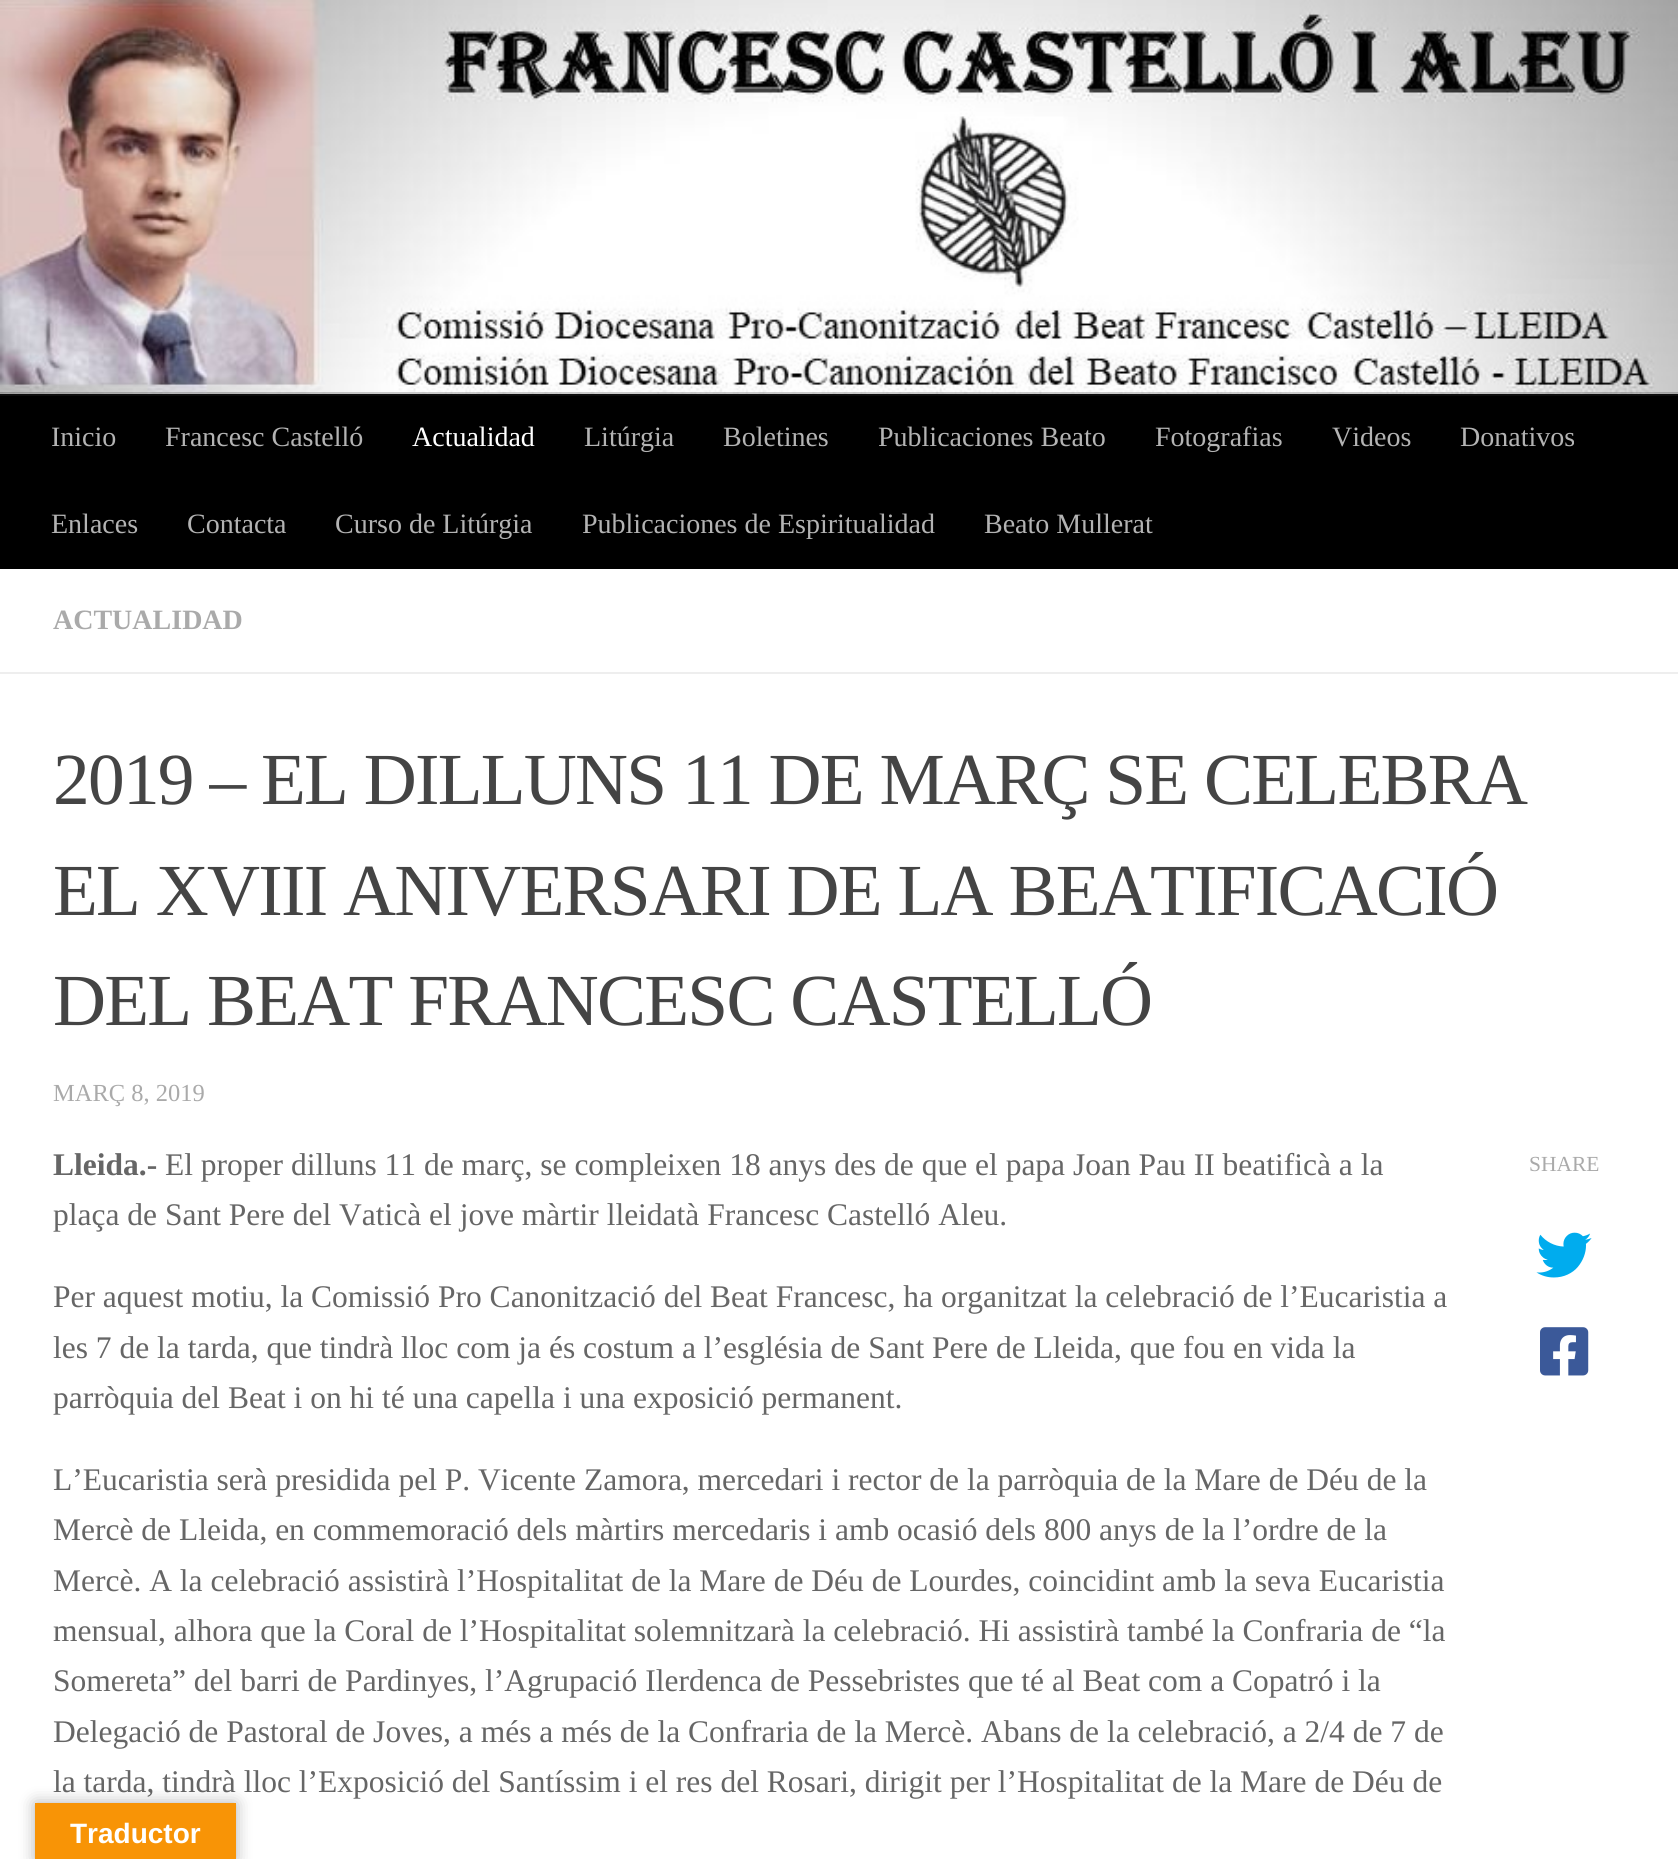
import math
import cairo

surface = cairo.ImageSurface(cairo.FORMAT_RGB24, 1678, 1859)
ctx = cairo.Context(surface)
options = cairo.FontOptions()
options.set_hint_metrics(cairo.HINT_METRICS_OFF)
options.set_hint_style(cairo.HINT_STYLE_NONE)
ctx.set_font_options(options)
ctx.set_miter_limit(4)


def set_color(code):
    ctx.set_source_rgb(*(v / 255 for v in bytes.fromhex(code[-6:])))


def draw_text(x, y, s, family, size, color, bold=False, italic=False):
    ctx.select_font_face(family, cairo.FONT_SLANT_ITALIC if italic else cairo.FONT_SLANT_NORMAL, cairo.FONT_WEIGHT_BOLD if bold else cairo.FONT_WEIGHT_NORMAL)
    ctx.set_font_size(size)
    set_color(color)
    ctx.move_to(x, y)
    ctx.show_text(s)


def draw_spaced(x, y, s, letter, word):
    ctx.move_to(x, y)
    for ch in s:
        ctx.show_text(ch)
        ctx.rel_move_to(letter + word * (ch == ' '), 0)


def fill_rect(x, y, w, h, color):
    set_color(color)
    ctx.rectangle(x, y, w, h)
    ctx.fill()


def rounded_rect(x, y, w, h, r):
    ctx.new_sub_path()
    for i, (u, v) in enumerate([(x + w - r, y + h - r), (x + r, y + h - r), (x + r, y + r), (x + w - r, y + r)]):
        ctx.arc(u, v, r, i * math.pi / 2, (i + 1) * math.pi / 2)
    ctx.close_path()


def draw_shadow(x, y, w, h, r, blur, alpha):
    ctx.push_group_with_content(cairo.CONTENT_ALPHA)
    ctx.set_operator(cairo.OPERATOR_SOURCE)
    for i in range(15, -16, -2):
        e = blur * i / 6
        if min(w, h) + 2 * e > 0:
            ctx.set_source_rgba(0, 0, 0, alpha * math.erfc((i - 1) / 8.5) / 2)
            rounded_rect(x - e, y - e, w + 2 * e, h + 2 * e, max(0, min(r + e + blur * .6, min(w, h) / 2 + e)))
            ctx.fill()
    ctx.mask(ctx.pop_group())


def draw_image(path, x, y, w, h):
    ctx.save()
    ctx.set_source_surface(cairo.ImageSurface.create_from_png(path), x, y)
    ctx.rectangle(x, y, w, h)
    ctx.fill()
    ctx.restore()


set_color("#ffffff")
ctx.paint()
draw_image("assets/img1.png", 0, 0, 1678, 394)
ctx.set_source_rgba(0, 0, 0, 0.2)
ctx.rectangle(0, 392, 1678, 2)
ctx.fill()
fill_rect(0, 396, 1678, 173, "#000000")
fill_rect(0, 394, 1678, 2, "#0d0d0d")
draw_text(51, 446, "Inicio", "Liberation Serif", 28, "#b3b3b3")
draw_text(165, 446, "Francesc Castelló", "Liberation Serif", 28, "#b3b3b3")
draw_text(412, 446, "Actualidad", "Liberation Serif", 28, "#ffffff")
draw_text(584, 446, "Litúrgia", "Liberation Serif", 28, "#b3b3b3")
draw_text(723, 446, "Boletines", "Liberation Serif", 28, "#b3b3b3")
draw_text(878, 446, "Publicaciones Beato", "Liberation Serif", 28, "#b3b3b3")
draw_text(1155, 446, "Fotografias", "Liberation Serif", 28, "#b3b3b3")
draw_text(1332, 446, "Videos", "Liberation Serif", 28, "#b3b3b3")
draw_text(1460, 446, "Donativos", "Liberation Serif", 28, "#b3b3b3")
draw_text(51, 533, "Enlaces", "Liberation Serif", 28, "#b3b3b3")
draw_text(187, 533, "Contacta", "Liberation Serif", 28, "#b3b3b3")
draw_text(335, 533, "Curso de Litúrgia", "Liberation Serif", 28, "#b3b3b3")
draw_text(582, 533, "Publicaciones de Espiritualidad", "Liberation Serif", 28, "#b3b3b3")
draw_text(984, 533, "Beato Mullerat", "Liberation Serif", 28, "#b3b3b3")
fill_rect(0, 672, 1678, 2, "#eeeeee")
draw_text(53, 629, "ACTUALIDAD", "Liberation Serif", 28, "#aaaaaa", bold=True)
ctx.select_font_face("Liberation Serif")
ctx.set_font_size(73.4)
set_color("#444444")
draw_spaced(53, 804, "2019 – EL DILLUNS 11 DE MARÇ SE CELEBRA", -1.75, 0)
draw_spaced(53, 915, "EL XVIII ANIVERSARI DE LA BEATIFICACIÓ", -1.75, 0)
draw_spaced(53, 1025, "DEL BEAT FRANCESC CASTELLÓ", -1.75, 0)
draw_text(53, 1101, "MARÇ 8, 2019", "Liberation Serif", 24.5, "#aaaaaa")
draw_text(53, 1175, "Lleida.-", "Liberation Serif", 31.5, "#666666", bold=True)
draw_text(165, 1175, "El proper dilluns 11 de març, se compleixen 18 anys des de que el papa Joan Pau II beatificà a la", "Liberation Serif", 31.5, "#666666")
draw_text(53, 1225, "plaça de Sant Pere del Vaticà el jove màrtir lleidatà Francesc Castelló Aleu.", "Liberation Serif", 31.5, "#666666")
draw_text(53, 1307, "Per aquest motiu, la Comissió Pro Canonització del Beat Francesc, ha organitzat la celebració de l’Eucaristia a", "Liberation Serif", 31.5, "#666666")
draw_text(53, 1358, "les 7 de la tarda, que tindrà lloc com ja és costum a l’església de Sant Pere de Lleida, que fou en vida la", "Liberation Serif", 31.5, "#666666")
draw_text(53, 1408, "parròquia del Beat i on hi té una capella i una exposició permanent.", "Liberation Serif", 31.5, "#666666")
draw_text(53, 1490, "L’Eucaristia serà presidida pel P. Vicente Zamora, mercedari i rector de la parròquia de la Mare de Déu de la", "Liberation Serif", 31.5, "#666666")
draw_text(53, 1540, "Mercè de Lleida, en commemoració dels màrtirs mercedaris i amb ocasió dels 800 anys de la l’ordre de la", "Liberation Serif", 31.5, "#666666")
draw_text(53, 1591, "Mercè. A la celebració assistirà l’Hospitalitat de la Mare de Déu de Lourdes, coincidint amb la seva Eucaristia", "Liberation Serif", 31.5, "#666666")
draw_text(53, 1641, "mensual, alhora que la Coral de l’Hospitalitat solemnitzarà la celebració. Hi assistirà també la Confraria de “la", "Liberation Serif", 31.5, "#666666")
draw_text(53, 1691, "Somereta” del barri de Pardinyes, l’Agrupació Ilerdenca de Pessebristes que té al Beat com a Copatró i la", "Liberation Serif", 31.5, "#666666")
draw_text(53, 1742, "Delegació de Pastoral de Joves, a més a més de la Confraria de la Mercè. Abans de la celebració, a 2/4 de 7 de", "Liberation Serif", 31.5, "#666666")
draw_text(53, 1792, "la tarda, tindrà lloc l’Exposició del Santíssim i el res del Rosari, dirigit per l’Hospitalitat de la Mare de Déu de", "Liberation Serif", 31.5, "#666666")
draw_text(1529, 1171, "SHARE", "Liberation Serif", 21.5, "#aaaaaa")
draw_image("assets/img2.png", 1536, 1232, 56, 46)
draw_image("assets/img3.png", 1540, 1327, 49, 49)
set_color("#000000")
draw_shadow(35, 1803, 201, 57, 0, 8, 0.3)
fill_rect(35, 1803, 201, 56, "#f89406")
draw_text(70, 1843, "Traductor", "Liberation Sans", 28, "#ffffff", bold=True)
surface.write_to_png("output.png")
